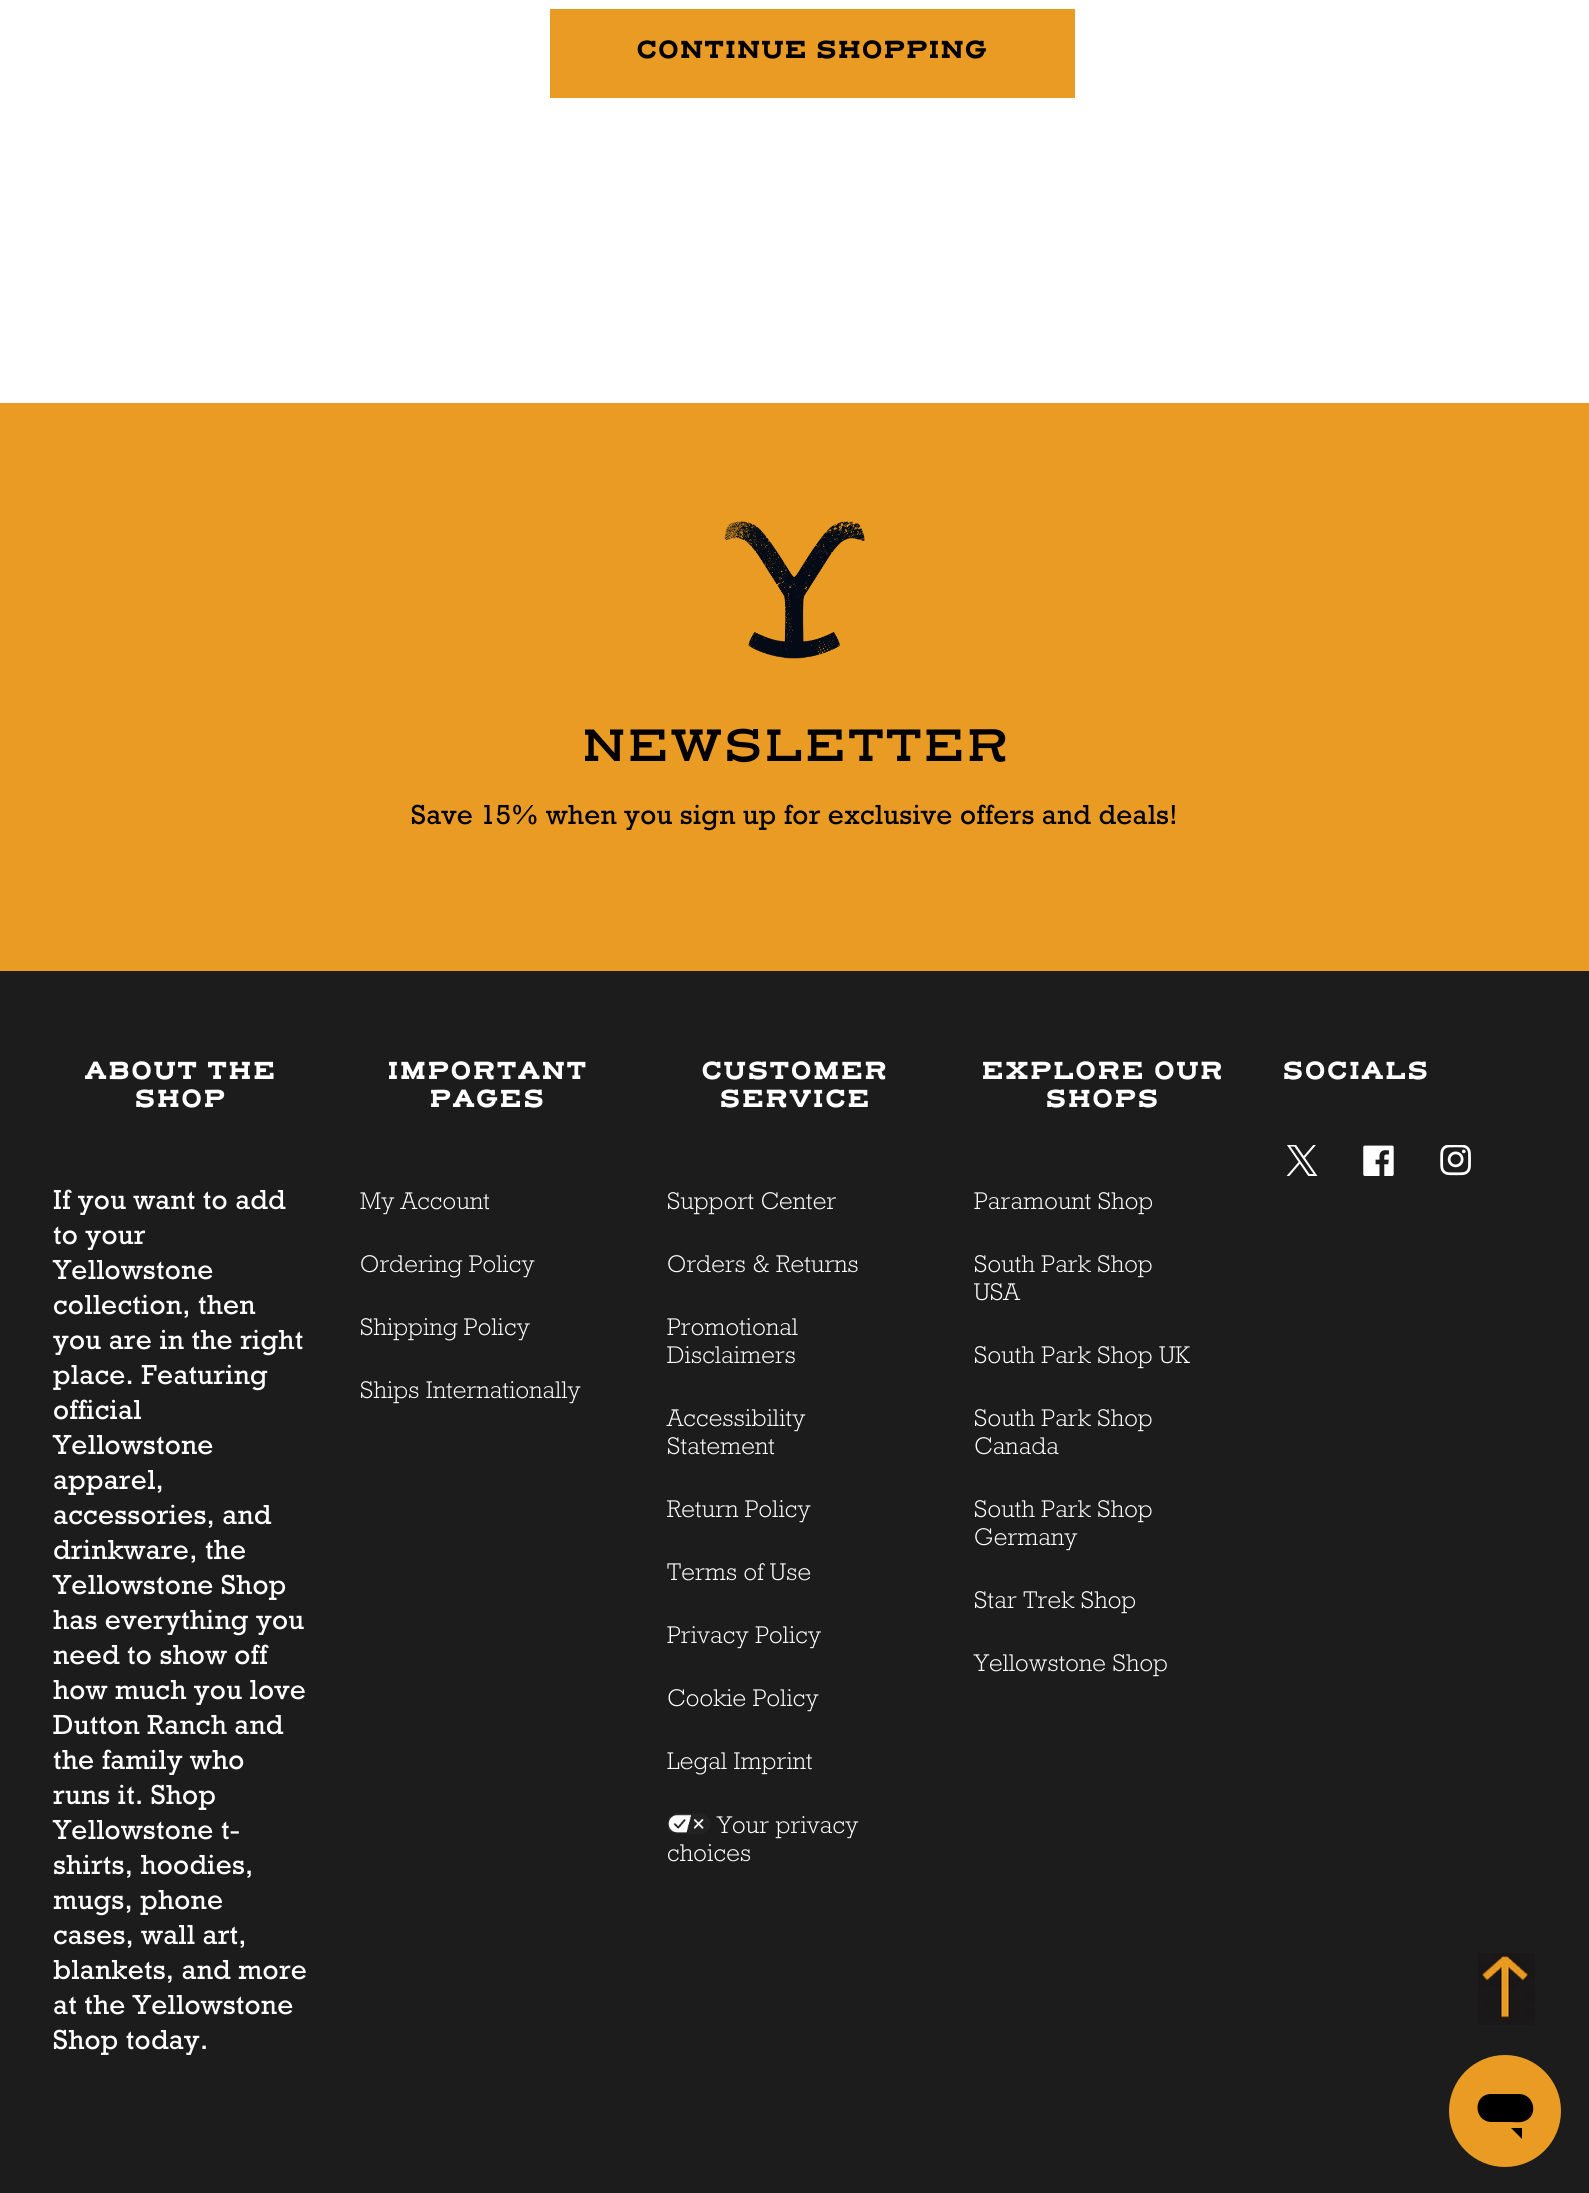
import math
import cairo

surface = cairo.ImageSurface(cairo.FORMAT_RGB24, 1589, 2193)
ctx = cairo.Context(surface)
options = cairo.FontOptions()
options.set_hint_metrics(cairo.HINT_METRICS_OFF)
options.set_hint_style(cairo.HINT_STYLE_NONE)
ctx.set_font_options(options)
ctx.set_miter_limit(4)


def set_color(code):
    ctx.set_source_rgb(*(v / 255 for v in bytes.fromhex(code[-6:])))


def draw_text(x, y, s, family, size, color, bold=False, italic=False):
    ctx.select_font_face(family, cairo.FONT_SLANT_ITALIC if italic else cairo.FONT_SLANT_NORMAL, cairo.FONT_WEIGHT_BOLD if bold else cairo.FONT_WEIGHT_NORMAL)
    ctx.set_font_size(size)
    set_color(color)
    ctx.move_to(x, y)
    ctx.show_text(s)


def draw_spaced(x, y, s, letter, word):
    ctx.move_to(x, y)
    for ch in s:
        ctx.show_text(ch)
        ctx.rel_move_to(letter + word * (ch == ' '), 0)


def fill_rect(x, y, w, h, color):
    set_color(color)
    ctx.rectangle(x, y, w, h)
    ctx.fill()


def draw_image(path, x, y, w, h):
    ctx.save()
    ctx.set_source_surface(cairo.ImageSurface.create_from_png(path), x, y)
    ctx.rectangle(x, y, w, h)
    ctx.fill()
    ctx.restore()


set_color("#ffffff")
ctx.paint()
fill_rect(550, 9, 525, 89, "#e99b23")
draw_text(636, 58, "CONTINUE SHOPPING", "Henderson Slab", 24.5, "#000000", bold=True)
fill_rect(0, 403, 1589, 568, "#e99b23")
draw_image("assets/img1.png", 724, 521, 141, 138)
draw_text(581, 761, "NEWSLETTER", "Henderson Slab SemiBold", 45.5, "#000000")
ctx.select_font_face("Rockwell")
ctx.set_font_size(28)
draw_spaced(411, 824, "Save 15% when you sign up for exclusive offers and deals!", 0.28, 0)
fill_rect(0, 971, 1589, 1222, "#1b1c1b")
ctx.select_font_face("Henderson Slab", cairo.FONT_SLANT_NORMAL, cairo.FONT_WEIGHT_BOLD)
ctx.set_font_size(24.5)
set_color("#ffffff")
draw_spaced(84, 1079, "ABOUT THE", 0.5, 0)
draw_spaced(134, 1107, "SHOP", 0.5, 0)
ctx.select_font_face("Rockwell")
ctx.set_font_size(28)
draw_spaced(53, 1209, "If you want to add", 0.28, 0)
draw_spaced(53, 1244, "to your", 0.28, 0)
draw_spaced(53, 1279, "Yellowstone", 0.28, 0)
draw_spaced(53, 1314, "collection, then", 0.28, 0)
draw_spaced(53, 1349, "you are in the right", 0.28, 0)
draw_spaced(53, 1384, "place. Featuring", 0.28, 0)
draw_spaced(53, 1419, "official", 0.28, 0)
draw_spaced(53, 1454, "Yellowstone", 0.28, 0)
draw_spaced(53, 1489, "apparel,", 0.28, 0)
draw_spaced(53, 1524, "accessories, and", 0.28, 0)
draw_spaced(53, 1559, "drinkware, the", 0.28, 0)
draw_spaced(53, 1594, "Yellowstone Shop", 0.28, 0)
draw_spaced(53, 1629, "has everything you", 0.28, 0)
draw_spaced(53, 1664, "need to show off", 0.28, 0)
draw_spaced(53, 1699, "how much you love", 0.28, 0)
draw_spaced(53, 1734, "Dutton Ranch and", 0.28, 0)
draw_spaced(53, 1769, "the family who", 0.28, 0)
draw_spaced(53, 1804, "runs it. Shop", 0.28, 0)
draw_spaced(53, 1839, "Yellowstone t-", 0.28, 0)
draw_spaced(53, 1874, "shirts, hoodies,", 0.28, 0)
draw_spaced(53, 1909, "mugs, phone", 0.28, 0)
draw_spaced(53, 1944, "cases, wall art,", 0.28, 0)
draw_spaced(53, 1979, "blankets, and more", 0.28, 0)
draw_spaced(53, 2014, "at the Yellowstone", 0.28, 0)
draw_spaced(53, 2049, "Shop today.", 0.28, 0)
ctx.select_font_face("Henderson Slab", cairo.FONT_SLANT_NORMAL, cairo.FONT_WEIGHT_BOLD)
ctx.set_font_size(24.5)
draw_spaced(387, 1079, "IMPORTANT", 0.5, 0)
draw_spaced(429, 1107, "PAGES", 0.5, 0)
ctx.select_font_face("Rockwell Light")
draw_spaced(360, 1209, "My Account", 0.25, 0)
draw_spaced(360, 1272, "Ordering Policy", 0.25, 0)
draw_spaced(360, 1335, "Shipping Policy", 0.25, 0)
draw_spaced(360, 1398, "Ships Internationally", 0.25, 0)
ctx.select_font_face("Henderson Slab", cairo.FONT_SLANT_NORMAL, cairo.FONT_WEIGHT_BOLD)
draw_spaced(701, 1079, "CUSTOMER", 0.5, 0)
draw_spaced(719, 1107, "SERVICE", 0.5, 0)
ctx.select_font_face("Rockwell Light")
draw_spaced(667, 1209, "Support Center", 0.25, 0)
draw_spaced(667, 1272, "Orders & Returns", 0.25, 0)
draw_spaced(667, 1335, "Promotional", 0.25, 0)
draw_spaced(667, 1363, "Disclaimers", 0.25, 0)
draw_spaced(667, 1426, "Accessibility", 0.25, 0)
draw_spaced(667, 1454, "Statement", 0.25, 0)
draw_spaced(667, 1517, "Return Policy", 0.25, 0)
draw_spaced(667, 1580, "Terms of Use", 0.25, 0)
draw_spaced(667, 1643, "Privacy Policy", 0.25, 0)
draw_spaced(667, 1706, "Cookie Policy", 0.25, 0)
draw_spaced(667, 1769, "Legal Imprint", 0.25, 0)
draw_image("assets/img2.png", 667, 1813, 43, 21)
draw_spaced(717, 1833, "Your privacy", 0.25, 0)
draw_spaced(667, 1861, "choices", 0.25, 0)
ctx.select_font_face("Henderson Slab", cairo.FONT_SLANT_NORMAL, cairo.FONT_WEIGHT_BOLD)
draw_spaced(981, 1079, "EXPLORE OUR", 0.5, 0)
draw_spaced(1045, 1107, "SHOPS", 0.5, 0)
ctx.select_font_face("Rockwell Light")
draw_spaced(974, 1209, "Paramount Shop", 0.25, 0)
draw_spaced(974, 1272, "South Park Shop", 0.25, 0)
draw_spaced(974, 1300, "USA", 0.25, 0)
draw_spaced(974, 1363, "South Park Shop UK", 0.25, 0)
draw_spaced(974, 1426, "South Park Shop", 0.25, 0)
draw_spaced(974, 1454, "Canada", 0.25, 0)
draw_spaced(974, 1517, "South Park Shop", 0.25, 0)
draw_spaced(974, 1545, "Germany", 0.25, 0)
draw_spaced(974, 1608, "Star Trek Shop", 0.25, 0)
draw_spaced(974, 1671, "Yellowstone Shop", 0.25, 0)
ctx.select_font_face("Henderson Slab", cairo.FONT_SLANT_NORMAL, cairo.FONT_WEIGHT_BOLD)
draw_spaced(1282, 1079, "SOCIALS", 0.5, 0)
draw_image("assets/img3.png", 1286, 1145, 32, 31)
draw_image("assets/img4.png", 1363, 1145, 31, 31)
draw_image("assets/img5.png", 1440, 1145, 31, 31)
draw_image("assets/img6.png", 1478, 1953, 57, 72)
set_color("#e99b23")
ctx.arc(1505, 2111, 56, 0, 2 * math.pi)
ctx.fill()
set_color("#000000")
ctx.new_path()
ctx.move_to(1511, 2128)
ctx.line_to(1522, 2139)
ctx.line_to(1522, 2128)
ctx.close_path()
ctx.move_to(1491, 2094)
ctx.curve_to(1473, 2094, 1473, 2121, 1491, 2122)
ctx.line_to(1510, 2122)
ctx.curve_to(1515, 2122, 1520, 2123, 1525, 2121)
ctx.curve_to(1539, 2115, 1534, 2094, 1519, 2094)
ctx.close_path()
ctx.fill()
surface.write_to_png("output.png")
